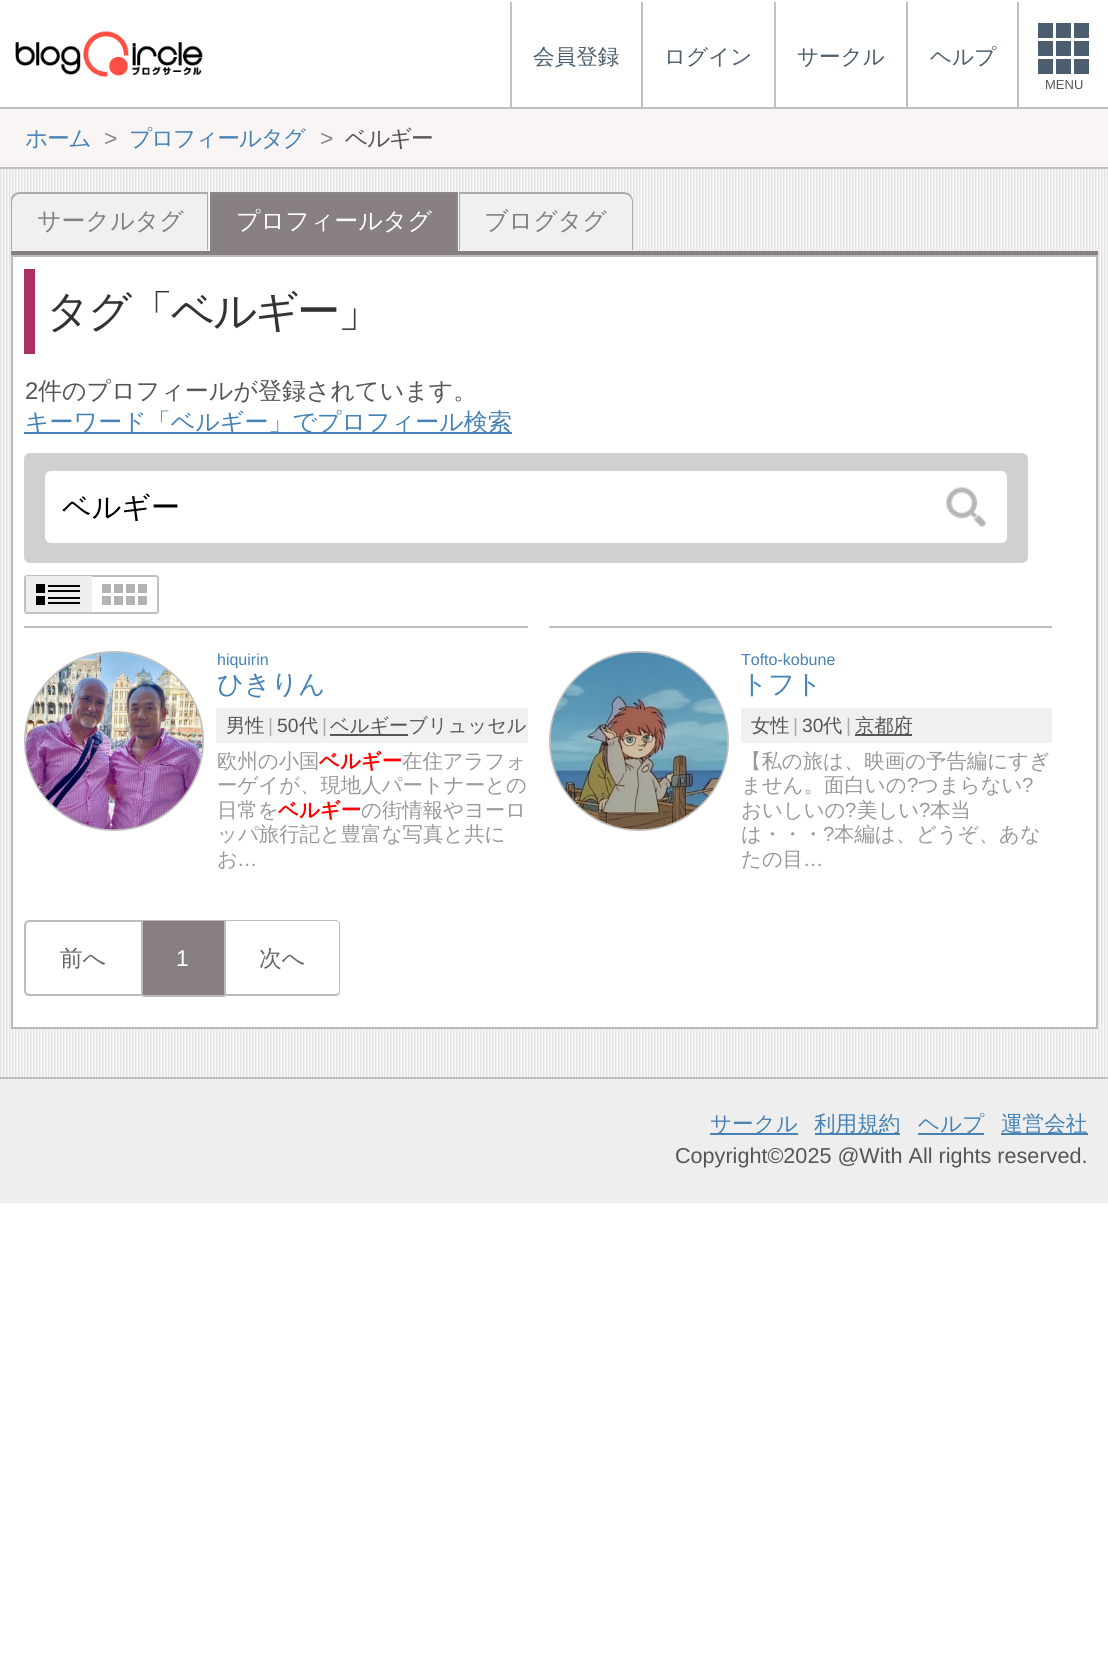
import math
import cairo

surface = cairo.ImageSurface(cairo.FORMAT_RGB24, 1108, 1672)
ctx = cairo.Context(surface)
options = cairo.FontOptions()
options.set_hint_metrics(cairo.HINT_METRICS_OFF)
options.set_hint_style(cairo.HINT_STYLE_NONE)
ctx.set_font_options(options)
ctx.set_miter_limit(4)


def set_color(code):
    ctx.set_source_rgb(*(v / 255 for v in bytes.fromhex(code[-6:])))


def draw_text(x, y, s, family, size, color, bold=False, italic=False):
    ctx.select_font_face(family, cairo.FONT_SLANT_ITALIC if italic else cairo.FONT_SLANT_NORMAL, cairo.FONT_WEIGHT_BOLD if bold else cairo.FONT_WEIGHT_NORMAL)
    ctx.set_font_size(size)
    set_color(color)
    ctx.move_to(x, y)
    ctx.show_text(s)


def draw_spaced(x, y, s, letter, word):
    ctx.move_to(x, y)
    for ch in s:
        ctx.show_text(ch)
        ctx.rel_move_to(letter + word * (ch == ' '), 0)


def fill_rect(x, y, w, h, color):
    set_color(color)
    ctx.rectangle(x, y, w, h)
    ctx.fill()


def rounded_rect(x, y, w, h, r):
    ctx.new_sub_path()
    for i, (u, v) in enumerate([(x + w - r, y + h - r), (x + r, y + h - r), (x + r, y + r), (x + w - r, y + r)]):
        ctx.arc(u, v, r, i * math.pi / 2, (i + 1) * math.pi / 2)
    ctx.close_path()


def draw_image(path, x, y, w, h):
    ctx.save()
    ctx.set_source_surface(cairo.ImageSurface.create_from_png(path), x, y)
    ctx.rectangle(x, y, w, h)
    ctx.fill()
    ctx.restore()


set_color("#ffffff")
ctx.paint()
draw_image("assets/img1.png", 0, 169, 1108, 908)
fill_rect(0, 107, 1108, 2, "#c0c0c0")
draw_image("assets/img2.png", 15, 31, 188, 46)
fill_rect(510, 2, 2, 105, "#c0c0c0")
draw_text(533, 64, "会員登録", "WenQuanYi Zen Hei Medium", 21.6, "#4c5e6d")
fill_rect(641, 2, 2, 105, "#c0c0c0")
draw_text(664, 64, "ログイン", "WenQuanYi Zen Hei Medium", 21.6, "#4c5e6d")
fill_rect(774, 2, 2, 105, "#c0c0c0")
draw_text(797, 64, "サークル", "WenQuanYi Zen Hei Medium", 21.6, "#4c5e6d")
fill_rect(906, 2, 2, 105, "#c0c0c0")
draw_text(930, 64, "ヘルプ", "WenQuanYi Zen Hei Medium", 21.6, "#4c5e6d")
fill_rect(1017, 2, 2, 105, "#c0c0c0")
fill_rect(1038, 23, 51, 15, "#4c5e6d")
fill_rect(1071, 23, 3, 15, "#ffffff")
fill_rect(1053, 23, 3, 15, "#ffffff")
fill_rect(1038, 41, 51, 15, "#4c5e6d")
fill_rect(1071, 41, 3, 15, "#ffffff")
fill_rect(1053, 41, 3, 15, "#ffffff")
fill_rect(1038, 59, 51, 15, "#4c5e6d")
fill_rect(1071, 59, 3, 15, "#ffffff")
fill_rect(1053, 59, 3, 15, "#ffffff")
draw_text(1045, 89, "MENU", "Liberation Sans", 13, "#555555")
fill_rect(0, 109, 1108, 58, "#faf5f5")
fill_rect(0, 167, 1108, 2, "#c0c0c0")
ctx.select_font_face("WenQuanYi Zen Hei Medium")
ctx.set_font_size(22.75)
set_color("#4682b4")
draw_spaced(25, 146, "ホーム", -1.25, 0)
ctx.select_font_face("Liberation Sans")
set_color("#888888")
draw_spaced(104, 146, ">", -1.25, 0)
ctx.select_font_face("WenQuanYi Zen Hei Medium")
set_color("#4682b4")
draw_spaced(129, 146, "プロフィールタグ", -1.25, 0)
ctx.select_font_face("Liberation Sans")
set_color("#888888")
draw_spaced(320, 146, ">", -1.25, 0)
ctx.select_font_face("WenQuanYi Zen Hei Medium")
set_color("#555555")
draw_spaced(345, 146, "ベルギー", -1.25, 0)
fill_rect(11, 251, 1087, 4, "#888080")
set_color("#f0f0f0")
ctx.new_path()
ctx.move_to(20, 192)
ctx.line_to(209, 192)
ctx.line_to(209, 251)
ctx.line_to(11, 251)
ctx.line_to(11, 201)
ctx.curve_to(11, 196, 15, 192, 20, 192)
ctx.close_path()
ctx.fill()
ctx.save()
ctx.rectangle(11, 192, 1087, 59)
ctx.clip()
set_color("#aaaaaa")
ctx.set_fill_rule(cairo.FILL_RULE_EVEN_ODD)
ctx.new_path()
ctx.move_to(20, 192)
ctx.line_to(208, 192)
ctx.line_to(208, 250)
ctx.line_to(10, 250)
ctx.line_to(10, 202)
ctx.curve_to(10, 196, 15, 192, 20, 192)
ctx.close_path()
ctx.move_to(20, 194)
ctx.line_to(207, 194)
ctx.line_to(207, 250)
ctx.line_to(12, 250)
ctx.line_to(12, 202)
ctx.curve_to(12, 197, 16, 194, 20, 194)
ctx.close_path()
ctx.fill()
ctx.restore()
draw_text(37, 229, "サークルタグ", "WenQuanYi Zen Hei Medium", 24, "#808080")
fill_rect(212, 194, 244, 57, "#888080")
fill_rect(210, 192, 248, 2, "#888888")
fill_rect(456, 192, 2, 59, "#888888")
fill_rect(210, 192, 2, 59, "#888888")
draw_text(236, 229, "プロフィールタグ", "WenQuanYi Zen Hei Medium", 24, "#ffffff")
set_color("#f0f0f0")
ctx.new_path()
ctx.move_to(459, 192)
ctx.line_to(624, 192)
ctx.curve_to(629, 192, 633, 196, 633, 201)
ctx.line_to(633, 251)
ctx.line_to(459, 251)
ctx.close_path()
ctx.fill()
set_color("#aaaaaa")
ctx.set_fill_rule(cairo.FILL_RULE_EVEN_ODD)
ctx.new_path()
ctx.move_to(459, 192)
ctx.line_to(623, 192)
ctx.curve_to(629, 192, 633, 196, 633, 202)
ctx.line_to(633, 250)
ctx.line_to(459, 250)
ctx.close_path()
ctx.move_to(460, 194)
ctx.line_to(623, 194)
ctx.curve_to(628, 194, 632, 197, 632, 202)
ctx.line_to(632, 250)
ctx.line_to(460, 250)
ctx.close_path()
ctx.fill()
draw_text(484, 229, "ブログタグ", "WenQuanYi Zen Hei Medium", 24, "#808080")
set_color("#ffffff")
ctx.rectangle(12, 256, 1085, 772)
ctx.fill_preserve()
set_color("#bbbbbb")
ctx.stroke()
fill_rect(24, 269, 11, 85, "#ab3063")
ctx.set_font_size(43.25)
set_color("#333333")
draw_spaced(46, 326, "タグ「ベルギー」", -2.25, 0)
draw_text(25, 399, "2", "Liberation Sans", 24, "#555555")
draw_text(38, 399, "件のプロフィールが登録されています。", "WenQuanYi Zen Hei Medium", 24, "#555555")
fill_rect(24, 432, 488, 2, "#4682b4")
draw_text(25, 430, "キーワード「ベルギー」でプロフィール検索", "WenQuanYi Zen Hei Medium", 24, "#4682b4")
set_color("#d0d0d0")
rounded_rect(24, 453, 1004, 110, 6)
ctx.fill()
set_color("#ffffff")
rounded_rect(46, 472, 960, 70, 5)
ctx.fill_preserve()
ctx.stroke()
draw_text(62, 517, "ベルギー", "WenQuanYi Zen Hei Medium", 29, "#000000")
draw_image("assets/img3.png", 946, 487, 40, 40)
rounded_rect(25, 576, 133, 37, 2)
set_color("#c0c0c0")
ctx.stroke()
fill_rect(26, 576, 66, 36, "#eeeeee")
fill_rect(36, 584, 9, 9, "#000000")
fill_rect(48, 585, 32, 2, "#000000")
fill_rect(48, 590, 32, 2, "#000000")
fill_rect(36, 596, 9, 9, "#000000")
fill_rect(48, 597, 32, 2, "#000000")
fill_rect(48, 602, 32, 2, "#000000")
fill_rect(102, 584, 9, 9, "#b3b3b3")
fill_rect(114, 584, 9, 9, "#b3b3b3")
fill_rect(126, 584, 9, 9, "#b3b3b3")
fill_rect(138, 584, 9, 9, "#b3b3b3")
fill_rect(102, 596, 9, 9, "#b3b3b3")
fill_rect(114, 596, 9, 9, "#b3b3b3")
fill_rect(126, 596, 9, 9, "#b3b3b3")
fill_rect(138, 596, 9, 9, "#b3b3b3")
fill_rect(24, 626, 504, 2, "#c0c0c0")
ctx.arc(114, 741, 89, 0, 2 * math.pi)
ctx.stroke()
draw_image("assets/img4.png", 25, 652, 178, 178)
draw_text(217, 665, "hiquirin", "Liberation Sans", 16, "#4682b4")
draw_text(217, 693, "ひきりん", "WenQuanYi Zen Hei Medium", 26.5, "#4682b4")
fill_rect(216, 708, 312, 35, "#f0f0f0")
draw_text(226, 732, "男性", "WenQuanYi Zen Hei Medium", 19.25, "#555555")
draw_text(268, 732, "|", "Liberation Sans", 19.25, "#aaaaaa")
draw_text(277, 732, "50", "Liberation Sans", 19.25, "#555555")
draw_text(299, 732, "代", "WenQuanYi Zen Hei Medium", 19.25, "#555555")
draw_text(322, 732, "|", "Liberation Sans", 19.25, "#aaaaaa")
fill_rect(330, 734, 78, 2, "#555555")
draw_text(330, 732, "ベルギーブリュッセル", "WenQuanYi Zen Hei Medium", 19.25, "#555555")
draw_text(217, 768, "欧州の小国", "WenQuanYi Zen Hei Medium", 20.4, "#999999")
draw_text(319, 768, "ベルギー", "WenQuanYi Zen Hei", 20.4, "#ff0000", bold=True)
draw_text(402, 768, "在住アラフォ", "WenQuanYi Zen Hei Medium", 20.4, "#999999")
draw_text(217, 792, "ーゲイが、現地人パートナーとの", "WenQuanYi Zen Hei Medium", 20.4, "#999999")
draw_text(217, 817, "日常を", "WenQuanYi Zen Hei Medium", 20.4, "#999999")
draw_text(278, 817, "ベルギー", "WenQuanYi Zen Hei", 20.4, "#ff0000", bold=True)
draw_text(361, 817, "の街情報やヨーロ", "WenQuanYi Zen Hei Medium", 20.4, "#999999")
draw_text(217, 841, "ッパ旅行記と豊富な写真と共に", "WenQuanYi Zen Hei Medium", 20.4, "#999999")
draw_text(217, 866, "お", "WenQuanYi Zen Hei Medium", 20.4, "#999999")
draw_text(237, 866, "…", "Liberation Sans", 20.4, "#999999")
fill_rect(549, 626, 503, 2, "#c0c0c0")
ctx.new_path()
ctx.arc(639, 741, 89, 0, 2 * math.pi)
ctx.stroke()
draw_image("assets/img5.png", 550, 652, 178, 178)
draw_text(741, 665, "Tofto-kobune", "Liberation Sans", 16, "#4682b4")
draw_text(741, 693, "トフト", "WenQuanYi Zen Hei Medium", 26.5, "#4682b4")
fill_rect(741, 708, 311, 35, "#f0f0f0")
draw_text(751, 732, "女性", "WenQuanYi Zen Hei Medium", 19.25, "#555555")
draw_text(793, 732, "|", "Liberation Sans", 19.25, "#aaaaaa")
draw_text(802, 732, "30", "Liberation Sans", 19.25, "#555555")
draw_text(823, 732, "代", "WenQuanYi Zen Hei Medium", 19.25, "#555555")
draw_text(846, 732, "|", "Liberation Sans", 19.25, "#aaaaaa")
fill_rect(855, 734, 57, 2, "#555555")
draw_text(855, 732, "京都府", "WenQuanYi Zen Hei Medium", 19.25, "#555555")
draw_text(741, 768, "【私の旅は、映画の予告編にすぎ", "WenQuanYi Zen Hei Medium", 20.4, "#999999")
draw_text(741, 792, "ません。面白いの", "WenQuanYi Zen Hei Medium", 20.4, "#999999")
draw_text(907, 792, "?", "Liberation Sans", 20.4, "#999999")
draw_text(918, 792, "つまらない", "WenQuanYi Zen Hei Medium", 20.4, "#999999")
draw_text(1022, 792, "?", "Liberation Sans", 20.4, "#999999")
draw_text(741, 817, "おいしいの", "WenQuanYi Zen Hei Medium", 20.4, "#999999")
draw_text(845, 817, "?", "Liberation Sans", 20.4, "#999999")
draw_text(857, 817, "美しい", "WenQuanYi Zen Hei Medium", 20.4, "#999999")
draw_text(919, 817, "?", "Liberation Sans", 20.4, "#999999")
draw_text(930, 817, "本当", "WenQuanYi Zen Hei Medium", 20.4, "#999999")
draw_text(741, 841, "は・・・", "WenQuanYi Zen Hei Medium", 20.4, "#999999")
draw_text(823, 841, "?", "Liberation Sans", 20.4, "#999999")
draw_text(834, 841, "本編は、どうぞ、あな", "WenQuanYi Zen Hei Medium", 20.4, "#999999")
draw_text(741, 866, "たの目", "WenQuanYi Zen Hei Medium", 20.4, "#999999")
draw_text(803, 866, "…", "Liberation Sans", 20.4, "#999999")
ctx.new_path()
ctx.move_to(29, 921)
ctx.line_to(142, 921)
ctx.line_to(142, 995)
ctx.line_to(29, 995)
ctx.curve_to(27, 995, 25, 993, 25, 991)
ctx.line_to(25, 925)
ctx.curve_to(25, 923, 27, 921, 29, 921)
ctx.close_path()
set_color("#bbbbbb")
ctx.stroke()
draw_text(60, 966, "前へ", "WenQuanYi Zen Hei Medium", 22.75, "#666666")
fill_rect(143, 920, 82, 1, "#bbbbbb")
fill_rect(224, 920, 2, 76, "#bbbbbb")
fill_rect(143, 995, 82, 2, "#bbbbbb")
fill_rect(143, 921, 81, 74, "#888080")
draw_text(176, 966, "1", "Liberation Sans", 22.75, "#ffffff")
set_color("#bbbbbb")
ctx.new_path()
ctx.move_to(225, 920)
ctx.line_to(336, 920)
ctx.curve_to(338, 920, 340, 922, 340, 924)
ctx.line_to(340, 991)
ctx.curve_to(340, 994, 338, 996, 336, 996)
ctx.line_to(225, 996)
ctx.close_path()
ctx.move_to(225, 921)
ctx.line_to(336, 921)
ctx.curve_to(338, 921, 339, 922, 339, 924)
ctx.line_to(339, 991)
ctx.curve_to(339, 993, 338, 994, 336, 994)
ctx.line_to(225, 994)
ctx.close_path()
ctx.fill()
draw_text(259, 966, "次へ", "WenQuanYi Zen Hei Medium", 22.75, "#666666")
fill_rect(0, 1079, 1108, 124, "#eeeeee")
fill_rect(0, 1077, 1108, 2, "#c0c0c0")
fill_rect(710, 1133, 88, 2, "#4682b4")
draw_text(710, 1131, "サークル", "WenQuanYi Zen Hei Medium", 21.6, "#4682b4")
fill_rect(815, 1133, 85, 2, "#4682b4")
draw_text(814, 1131, "利用規約", "WenQuanYi Zen Hei Medium", 21.6, "#4682b4")
fill_rect(918, 1133, 66, 2, "#4682b4")
draw_text(918, 1131, "ヘルプ", "WenQuanYi Zen Hei Medium", 21.6, "#4682b4")
fill_rect(1001, 1133, 87, 2, "#4682b4")
draw_text(1001, 1131, "運営会社", "WenQuanYi Zen Hei Medium", 21.6, "#4682b4")
draw_text(675, 1163, "Copyright©2025 @With All rights reserved.", "Liberation Sans", 21.6, "#555555")
surface.write_to_png("output.png")
